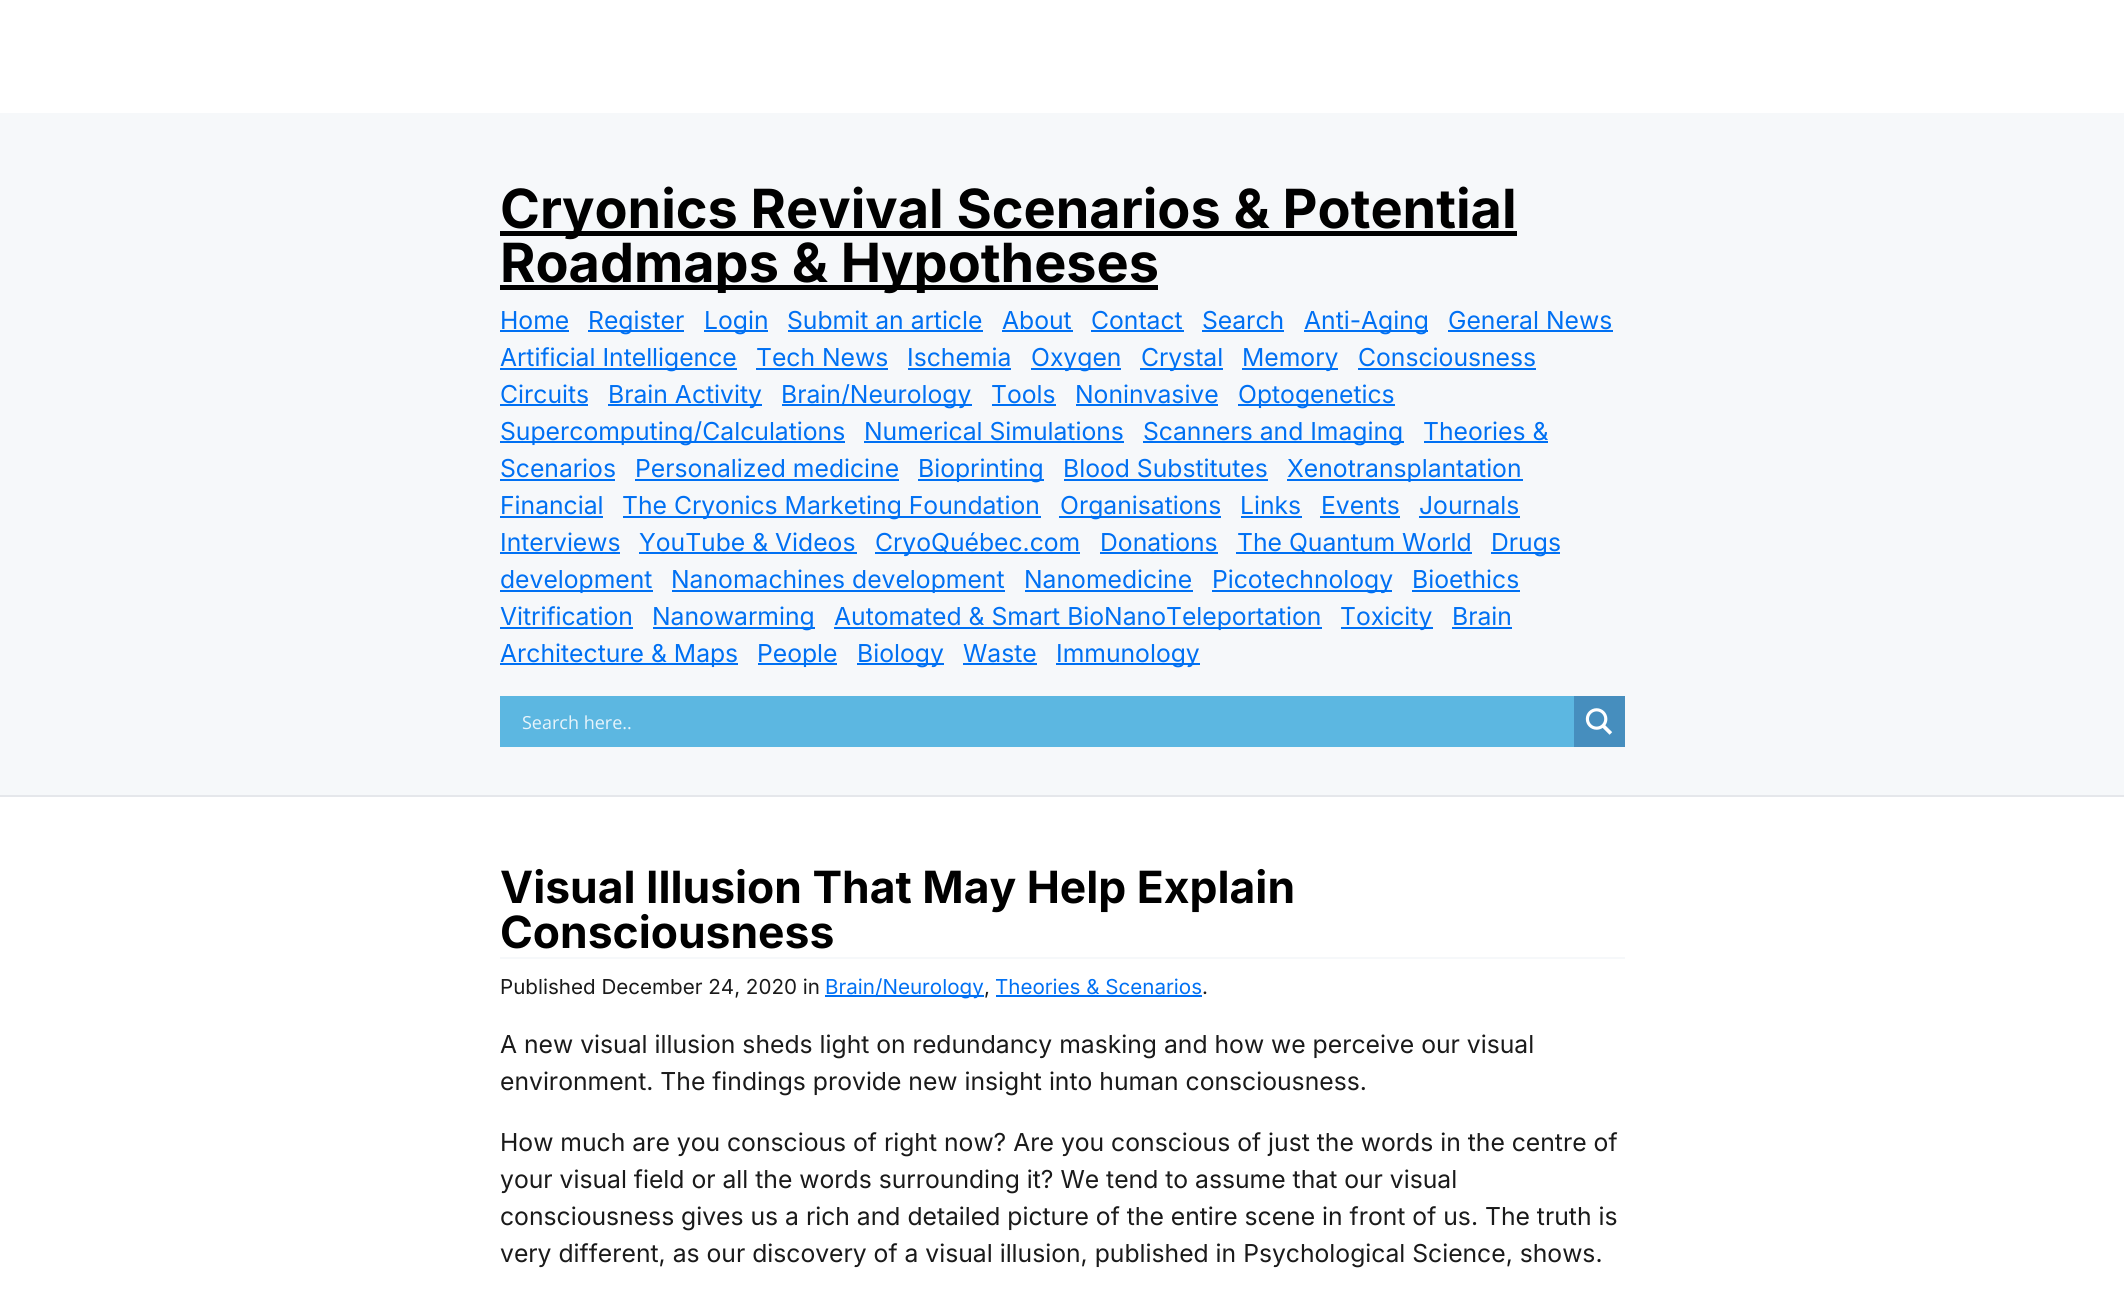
import math
import cairo

surface = cairo.ImageSurface(cairo.FORMAT_RGB24, 2124, 1316)
ctx = cairo.Context(surface)
options = cairo.FontOptions()
options.set_hint_metrics(cairo.HINT_METRICS_OFF)
options.set_hint_style(cairo.HINT_STYLE_NONE)
ctx.set_font_options(options)
ctx.set_miter_limit(4)


def set_color(code):
    ctx.set_source_rgb(*(v / 255 for v in bytes.fromhex(code[-6:])))


def draw_text(x, y, s, family, size, color, bold=False, italic=False):
    ctx.select_font_face(family, cairo.FONT_SLANT_ITALIC if italic else cairo.FONT_SLANT_NORMAL, cairo.FONT_WEIGHT_BOLD if bold else cairo.FONT_WEIGHT_NORMAL)
    ctx.set_font_size(size)
    set_color(color)
    ctx.move_to(x, y)
    ctx.show_text(s)


def fill_rect(x, y, w, h, color):
    set_color(color)
    ctx.rectangle(x, y, w, h)
    ctx.fill()


def draw_image(path, x, y, w, h):
    ctx.save()
    ctx.set_source_surface(cairo.ImageSurface.create_from_png(path), x, y)
    ctx.rectangle(x, y, w, h)
    ctx.fill()
    ctx.restore()


set_color("#ffffff")
ctx.paint()
fill_rect(0, 113, 2124, 682, "#f6f8fa")
fill_rect(0, 795, 2124, 2, "#e5e7eb")
fill_rect(500, 231, 1017, 5, "#000000")
draw_text(500, 228, "Cryonics Revival Scenarios & Potential", "Inter", 54, "#000000", bold=True)
fill_rect(500, 285, 658, 5, "#000000")
draw_text(500, 282, "Roadmaps & Hypotheses", "Inter", 54, "#000000", bold=True)
draw_text(500, 329, "Home", "Inter", 24.7, "#0070f3")
fill_rect(500, 330, 69, 2, "#0070f3")
fill_rect(588, 330, 96, 2, "#0070f3")
draw_text(588, 329, "Register", "Inter", 24.7, "#0070f3")
fill_rect(704, 330, 64, 2, "#0070f3")
draw_text(704, 329, "Login", "Inter", 24.7, "#0070f3")
draw_text(787, 329, "Submit an article", "Inter", 24.7, "#0070f3")
fill_rect(788, 330, 195, 2, "#0070f3")
draw_text(1002, 329, "About", "Inter", 24.7, "#0070f3")
fill_rect(1002, 330, 71, 2, "#0070f3")
draw_text(1091, 329, "Contact", "Inter", 24.7, "#0070f3")
fill_rect(1091, 330, 93, 2, "#0070f3")
draw_text(1202, 329, "Search", "Inter", 24.7, "#0070f3")
fill_rect(1202, 330, 82, 2, "#0070f3")
fill_rect(1304, 330, 124, 2, "#0070f3")
draw_text(1304, 329, "Anti-Aging", "Inter", 24.7, "#0070f3")
draw_text(1448, 329, "General News", "Inter", 24.7, "#0070f3")
fill_rect(1448, 330, 165, 2, "#0070f3")
fill_rect(500, 368, 237, 2, "#0070f3")
draw_text(500, 366, "Artificial Intelligence", "Inter", 24.7, "#0070f3")
draw_text(756, 366, "Tech News", "Inter", 24.7, "#0070f3")
fill_rect(756, 368, 132, 2, "#0070f3")
draw_text(907, 366, "Ischemia", "Inter", 24.7, "#0070f3")
fill_rect(908, 368, 103, 2, "#0070f3")
fill_rect(1031, 368, 90, 2, "#0070f3")
draw_text(1031, 366, "Oxygen", "Inter", 24.7, "#0070f3")
fill_rect(1140, 368, 83, 2, "#0070f3")
draw_text(1141, 366, "Crystal", "Inter", 24.7, "#0070f3")
fill_rect(1242, 368, 96, 2, "#0070f3")
draw_text(1242, 366, "Memory", "Inter", 24.7, "#0070f3")
draw_text(1358, 366, "Consciousness", "Inter", 24.7, "#0070f3")
fill_rect(1358, 368, 178, 2, "#0070f3")
draw_text(500, 403, "Circuits", "Inter", 24.7, "#0070f3")
fill_rect(500, 404, 88, 2, "#0070f3")
fill_rect(608, 404, 154, 2, "#0070f3")
draw_text(608, 403, "Brain Activity", "Inter", 24.7, "#0070f3")
fill_rect(782, 404, 190, 2, "#0070f3")
draw_text(781, 403, "Brain/Neurology", "Inter", 24.7, "#0070f3")
draw_text(991, 403, "Tools", "Inter", 24.7, "#0070f3")
fill_rect(992, 404, 64, 2, "#0070f3")
draw_text(1075, 403, "Noninvasive", "Inter", 24.7, "#0070f3")
fill_rect(1076, 404, 142, 2, "#0070f3")
fill_rect(1238, 404, 157, 2, "#0070f3")
draw_text(1238, 403, "Optogenetics", "Inter", 24.7, "#0070f3")
fill_rect(500, 441, 345, 2, "#0070f3")
draw_text(500, 440, "Supercomputing/Calculations", "Inter", 24.7, "#0070f3")
draw_text(864, 440, "Numerical Simulations", "Inter", 24.7, "#0070f3")
fill_rect(864, 441, 260, 2, "#0070f3")
fill_rect(1143, 441, 261, 2, "#0070f3")
draw_text(1143, 440, "Scanners and Imaging", "Inter", 24.7, "#0070f3")
draw_text(1423, 440, "Theories &", "Inter", 24.7, "#0070f3")
fill_rect(1424, 441, 124, 2, "#0070f3")
draw_text(500, 477, "Scenarios", "Inter", 24.7, "#0070f3")
fill_rect(500, 479, 115, 2, "#0070f3")
draw_text(635, 477, "Personalized medicine", "Inter", 24.7, "#0070f3")
fill_rect(635, 479, 264, 2, "#0070f3")
fill_rect(918, 479, 126, 2, "#0070f3")
draw_text(918, 477, "Bioprinting", "Inter", 24.7, "#0070f3")
draw_text(1063, 477, "Blood Substitutes", "Inter", 24.7, "#0070f3")
fill_rect(1064, 479, 204, 2, "#0070f3")
fill_rect(1287, 479, 236, 2, "#0070f3")
draw_text(1287, 477, "Xenotransplantation", "Inter", 24.7, "#0070f3")
draw_text(500, 514, "Financial", "Inter", 24.7, "#0070f3")
fill_rect(500, 516, 103, 2, "#0070f3")
fill_rect(623, 516, 418, 2, "#0070f3")
draw_text(622, 514, "The Cryonics Marketing Foundation", "Inter", 24.7, "#0070f3")
fill_rect(1059, 516, 162, 2, "#0070f3")
draw_text(1060, 514, "Organisations", "Inter", 24.7, "#0070f3")
draw_text(1240, 514, "Links", "Inter", 24.7, "#0070f3")
fill_rect(1241, 516, 61, 2, "#0070f3")
draw_text(1321, 514, "Events", "Inter", 24.7, "#0070f3")
fill_rect(1320, 516, 80, 2, "#0070f3")
draw_text(1419, 514, "Journals", "Inter", 24.7, "#0070f3")
fill_rect(1419, 516, 101, 2, "#0070f3")
draw_text(500, 551, "Interviews", "Inter", 24.7, "#0070f3")
fill_rect(500, 552, 120, 2, "#0070f3")
draw_text(639, 551, "YouTube & Videos", "Inter", 24.7, "#0070f3")
fill_rect(639, 552, 218, 2, "#0070f3")
fill_rect(875, 552, 205, 2, "#0070f3")
draw_text(875, 551, "CryoQuébec.com", "Inter", 24.7, "#0070f3")
draw_text(1100, 551, "Donations", "Inter", 24.7, "#0070f3")
fill_rect(1100, 552, 118, 2, "#0070f3")
fill_rect(1236, 552, 236, 2, "#0070f3")
draw_text(1237, 551, "The Quantum World", "Inter", 24.7, "#0070f3")
fill_rect(1491, 552, 69, 2, "#0070f3")
draw_text(1491, 551, "Drugs", "Inter", 24.7, "#0070f3")
fill_rect(500, 590, 153, 2, "#0070f3")
draw_text(500, 588, "development", "Inter", 24.7, "#0070f3")
fill_rect(672, 590, 333, 2, "#0070f3")
draw_text(671, 588, "Nanomachines development", "Inter", 24.7, "#0070f3")
draw_text(1024, 588, "Nanomedicine", "Inter", 24.7, "#0070f3")
fill_rect(1025, 590, 168, 2, "#0070f3")
fill_rect(1212, 590, 180, 2, "#0070f3")
draw_text(1212, 588, "Picotechnology", "Inter", 24.7, "#0070f3")
draw_text(1412, 588, "Bioethics", "Inter", 24.7, "#0070f3")
fill_rect(1412, 590, 108, 2, "#0070f3")
draw_text(500, 625, "Vitrification", "Inter", 24.7, "#0070f3")
fill_rect(500, 627, 133, 2, "#0070f3")
fill_rect(653, 627, 162, 2, "#0070f3")
draw_text(652, 625, "Nanowarming", "Inter", 24.7, "#0070f3")
fill_rect(834, 627, 488, 2, "#0070f3")
draw_text(834, 625, "Automated & Smart BioNanoTeleportation", "Inter", 24.7, "#0070f3")
fill_rect(1341, 627, 92, 2, "#0070f3")
draw_text(1340, 625, "Toxicity", "Inter", 24.7, "#0070f3")
draw_text(1452, 625, "Brain", "Inter", 24.7, "#0070f3")
fill_rect(1452, 627, 60, 2, "#0070f3")
fill_rect(500, 663, 238, 2, "#0070f3")
draw_text(500, 662, "Architecture & Maps", "Inter", 24.7, "#0070f3")
fill_rect(758, 663, 79, 2, "#0070f3")
draw_text(757, 662, "People", "Inter", 24.7, "#0070f3")
fill_rect(857, 663, 87, 2, "#0070f3")
draw_text(857, 662, "Biology", "Inter", 24.7, "#0070f3")
draw_text(963, 662, "Waste", "Inter", 24.7, "#0070f3")
fill_rect(963, 663, 74, 2, "#0070f3")
fill_rect(1056, 663, 144, 2, "#0070f3")
draw_text(1056, 662, "Immunology", "Inter", 24.7, "#0070f3")
fill_rect(500, 696, 1074, 51, "#5cb7e1")
draw_text(522, 729, "Search here..", "Open Sans", 18, "#e7f4fb")
fill_rect(1574, 696, 51, 51, "#468ebe")
draw_image("assets/img1.png", 1585, 708, 28, 27)
fill_rect(500, 957, 1125, 2, "#f6f8fa")
draw_text(500, 903, "Visual Illusion That May Help Explain", "Inter", 44.4, "#000000", bold=True)
draw_text(500, 948, "Consciousness", "Inter", 44.4, "#000000", bold=True)
draw_text(500, 994, "Published December 24, 2020 in", "Inter", 20.6, "#1a1a1a")
fill_rect(825, 995, 159, 2, "#0070f3")
draw_text(825, 994, "Brain/Neurology", "Inter", 20.6, "#0070f3")
draw_text(984, 994, ",", "Inter", 20.6, "#1a1a1a")
draw_text(995, 994, "Theories & Scenarios", "Inter", 20.6, "#0070f3")
fill_rect(996, 995, 206, 2, "#0070f3")
draw_text(1202, 994, ".", "Inter", 20.6, "#1a1a1a")
draw_text(500, 1053, "A new visual illusion sheds light on redundancy masking and how we perceive our visual", "Inter", 24.7, "#1a1a1a")
draw_text(500, 1090, "environment. The findings provide new insight into human consciousness.", "Inter", 24.7, "#1a1a1a")
draw_text(500, 1151, "How much are you conscious of right now? Are you conscious of just the words in the centre of", "Inter", 24.7, "#1a1a1a")
draw_text(500, 1188, "your visual field or all the words surrounding it? We tend to assume that our visual", "Inter", 24.7, "#1a1a1a")
draw_text(500, 1225, "consciousness gives us a rich and detailed picture of the entire scene in front of us. The truth is", "Inter", 24.7, "#1a1a1a")
draw_text(500, 1262, "very different, as our discovery of a visual illusion, published in Psychological Science, shows.", "Inter", 24.7, "#1a1a1a")
surface.write_to_png("output.png")
